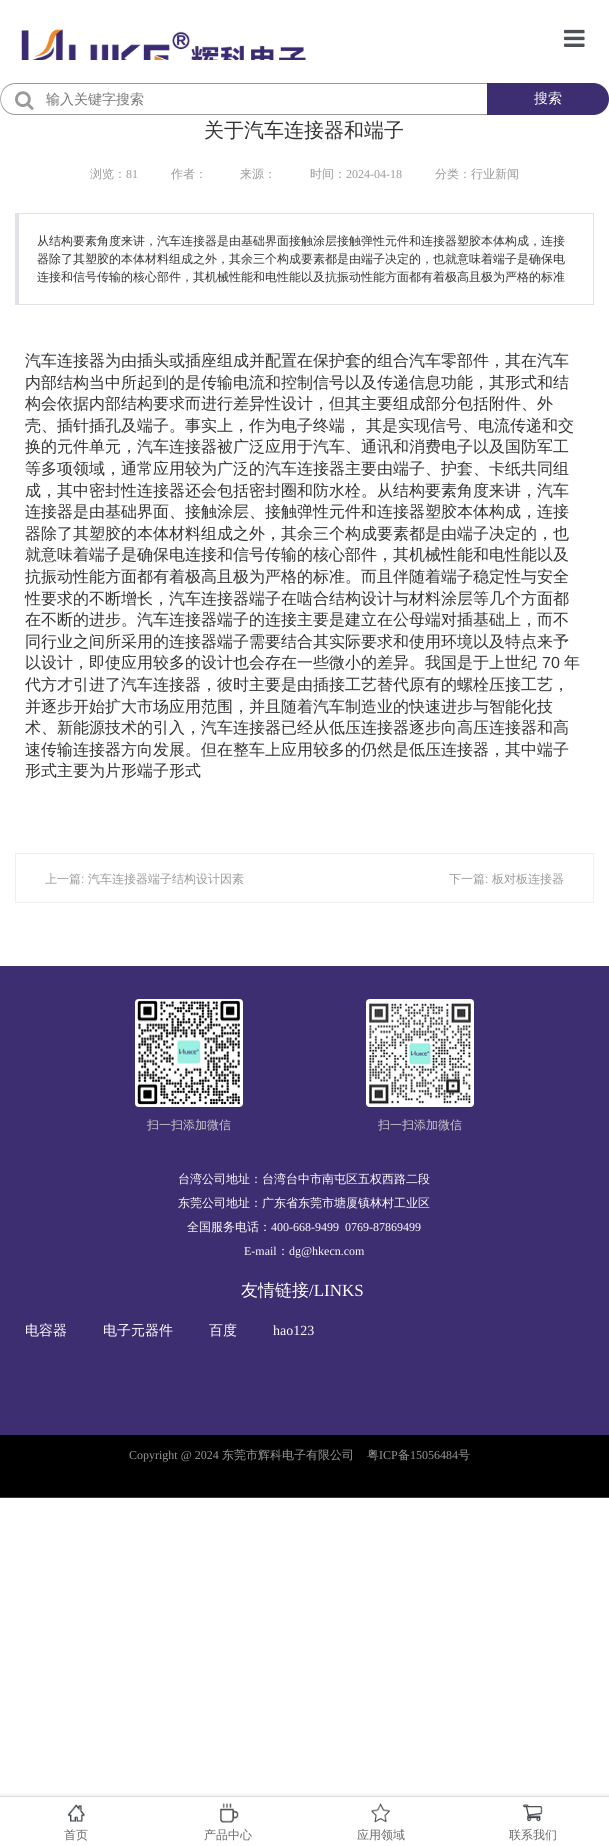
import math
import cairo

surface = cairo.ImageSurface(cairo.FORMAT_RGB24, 609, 1846)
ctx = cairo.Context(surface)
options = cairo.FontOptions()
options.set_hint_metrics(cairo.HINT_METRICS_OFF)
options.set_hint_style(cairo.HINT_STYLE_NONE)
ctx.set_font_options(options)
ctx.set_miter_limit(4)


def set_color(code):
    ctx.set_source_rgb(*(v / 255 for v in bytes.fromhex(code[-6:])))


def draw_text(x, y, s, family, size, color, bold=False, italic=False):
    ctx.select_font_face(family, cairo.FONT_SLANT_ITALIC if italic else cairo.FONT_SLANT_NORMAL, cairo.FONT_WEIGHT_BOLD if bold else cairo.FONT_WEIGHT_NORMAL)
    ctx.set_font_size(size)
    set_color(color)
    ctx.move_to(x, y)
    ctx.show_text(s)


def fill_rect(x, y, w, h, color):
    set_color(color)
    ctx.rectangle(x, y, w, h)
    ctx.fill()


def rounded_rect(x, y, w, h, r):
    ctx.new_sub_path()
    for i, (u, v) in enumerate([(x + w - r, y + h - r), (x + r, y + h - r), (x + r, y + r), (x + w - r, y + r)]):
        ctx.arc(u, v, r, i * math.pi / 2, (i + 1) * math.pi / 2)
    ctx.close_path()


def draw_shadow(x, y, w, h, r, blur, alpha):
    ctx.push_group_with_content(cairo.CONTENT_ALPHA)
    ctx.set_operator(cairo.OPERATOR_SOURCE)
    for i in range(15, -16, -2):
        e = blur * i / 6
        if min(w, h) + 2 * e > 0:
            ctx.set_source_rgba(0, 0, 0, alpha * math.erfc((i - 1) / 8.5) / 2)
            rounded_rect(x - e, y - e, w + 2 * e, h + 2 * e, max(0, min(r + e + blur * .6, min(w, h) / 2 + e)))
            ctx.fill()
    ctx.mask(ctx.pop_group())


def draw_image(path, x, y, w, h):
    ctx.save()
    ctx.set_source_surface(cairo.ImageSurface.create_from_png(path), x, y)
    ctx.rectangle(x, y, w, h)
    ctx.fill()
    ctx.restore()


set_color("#ffffff")
ctx.paint()
draw_image("assets/img1.png", 21, 29, 285, 31)
draw_image("assets/img2.png", 564, 29, 21, 18)
set_color("#999999")
ctx.set_fill_rule(cairo.FILL_RULE_EVEN_ODD)
ctx.new_path()
ctx.move_to(16, 83)
ctx.line_to(487, 83)
ctx.line_to(487, 115)
ctx.line_to(16, 115)
ctx.curve_to(-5, 115, -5, 83, 16, 83)
ctx.close_path()
ctx.move_to(16, 84)
ctx.line_to(487, 84)
ctx.line_to(487, 114)
ctx.line_to(16, 114)
ctx.curve_to(-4, 114, -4, 84, 16, 84)
ctx.close_path()
ctx.fill()
draw_image("assets/img3.png", 15, 91, 19, 19)
draw_text(46, 104, "输入关键字搜索", "WenQuanYi Zen Hei Medium", 14, "#757575")
set_color("#3c2e70")
ctx.new_path()
ctx.move_to(487, 83)
ctx.line_to(593, 83)
ctx.curve_to(602, 83, 609, 90, 609, 99)
ctx.curve_to(609, 108, 602, 115, 593, 115)
ctx.line_to(487, 115)
ctx.close_path()
ctx.fill()
draw_text(534, 103, "搜索", "WenQuanYi Zen Hei Medium", 14, "#ffffff")
draw_text(204, 137, "关于汽车连接器和端子", "WenQuanYi Zen Hei Medium", 20, "#333333")
draw_text(90, 178, "浏览：", "WenQuanYi Zen Hei Medium", 12, "#999999")
draw_text(126, 178, "81", "Liberation Serif", 12, "#999999")
draw_text(171, 178, "作者：", "WenQuanYi Zen Hei Medium", 12, "#999999")
draw_text(240, 178, "来源：", "WenQuanYi Zen Hei Medium", 12, "#999999")
draw_text(310, 178, "时间：", "WenQuanYi Zen Hei Medium", 12, "#999999")
draw_text(346, 178, "2024-04-18", "Liberation Serif", 12, "#999999")
draw_text(435, 178, "分类：行业新闻", "WenQuanYi Zen Hei Medium", 12, "#999999")
fill_rect(15, 213, 579, 1, "#e1e1e7")
fill_rect(593, 213, 1, 92, "#e1e1e7")
fill_rect(15, 304, 579, 1, "#e1e1e7")
fill_rect(15, 213, 4, 92, "#e1e1e7")
draw_text(37, 245, "从结构要素角度来讲，汽车连接器是由基础界面接触涂层接触弹性元件和连接器塑胶本体构成，连接", "WenQuanYi Zen Hei Medium", 12, "#333333")
draw_text(37, 263, "器除了其塑胶的本体材料组成之外，其余三个构成要素都是由端子决定的，也就意味着端子是确保电", "WenQuanYi Zen Hei Medium", 12, "#333333")
draw_text(37, 281, "连接和信号传输的核心部件，其机械性能和电性能以及抗振动性能方面都有着极高且极为严格的标准", "WenQuanYi Zen Hei Medium", 12, "#333333")
draw_text(25, 366, "汽车连接器为由插头或插座组成并配置在保护套的组合汽车零部件，其在汽车", "WenQuanYi Zen Hei Medium", 16, "#333333")
draw_text(25, 388, "内部结构当中所起到的是传输电流和控制信号以及传递信息功能，其形式和结", "WenQuanYi Zen Hei Medium", 16, "#333333")
draw_text(25, 409, "构会依据内部结构要求而进行差异性设计，但其主要组成部分包括附件、外", "WenQuanYi Zen Hei Medium", 16, "#333333")
draw_text(25, 431, "壳、插针插孔及端子。事实上，作为电子终端，", "WenQuanYi Zen Hei Medium", 16, "#333333")
draw_text(366, 431, "其是实现信号、电流传递和交", "WenQuanYi Zen Hei Medium", 16, "#333333")
draw_text(25, 452, "换的元件单元，汽车连接器被广泛应用于汽车、通讯和消费电子以及国防军工", "WenQuanYi Zen Hei Medium", 16, "#333333")
draw_text(25, 474, "等多项领域，通常应用较为广泛的汽车连接器主要由端子、护套、卡纸共同组", "WenQuanYi Zen Hei Medium", 16, "#333333")
draw_text(25, 496, "成，其中密封性连接器还会包括密封圈和防水栓。从结构要素角度来讲，汽车", "WenQuanYi Zen Hei Medium", 16, "#333333")
draw_text(25, 517, "连接器是由基础界面、接触涂层、接触弹性元件和连接器塑胶本体构成，连接", "WenQuanYi Zen Hei Medium", 16, "#333333")
draw_text(25, 539, "器除了其塑胶的本体材料组成之外，其余三个构成要素都是由端子决定的，也", "WenQuanYi Zen Hei Medium", 16, "#333333")
draw_text(25, 560, "就意味着端子是确保电连接和信号传输的核心部件，其机械性能和电性能以及", "WenQuanYi Zen Hei Medium", 16, "#333333")
draw_text(25, 582, "抗振动性能方面都有着极高且极为严格的标准。而且伴随着端子稳定性与安全", "WenQuanYi Zen Hei Medium", 16, "#333333")
draw_text(25, 604, "性要求的不断增长，汽车连接器端子在啮合结构设计与材料涂层等几个方面都", "WenQuanYi Zen Hei Medium", 16, "#333333")
draw_text(25, 625, "在不断的进步。汽车连接器端子的连接主要是建立在公母端对插基础上，而不", "WenQuanYi Zen Hei Medium", 16, "#333333")
draw_text(25, 647, "同行业之间所采用的连接器端子需要结合其实际要求和使用环境以及特点来予", "WenQuanYi Zen Hei Medium", 16, "#333333")
draw_text(25, 668, "以设计，即使应用较多的设计也会存在一些微小的差异。我国是于上世纪", "WenQuanYi Zen Hei Medium", 16, "#333333")
draw_text(542, 668, "70", "Liberation Sans", 16, "#333333")
draw_text(564, 668, "年", "WenQuanYi Zen Hei Medium", 16, "#333333")
draw_text(25, 690, "代方才引进了汽车连接器，彼时主要是由插接工艺替代原有的螺栓压接工艺，", "WenQuanYi Zen Hei Medium", 16, "#333333")
draw_text(25, 712, "并逐步开始扩大市场应用范围，并且随着汽车制造业的快速进步与智能化技", "WenQuanYi Zen Hei Medium", 16, "#333333")
draw_text(25, 733, "术、新能源技术的引入，汽车连接器已经从低压连接器逐步向高压连接器和高", "WenQuanYi Zen Hei Medium", 16, "#333333")
draw_text(25, 755, "速传输连接器方向发展。但在整车上应用较多的仍然是低压连接器，其中端子", "WenQuanYi Zen Hei Medium", 16, "#333333")
draw_text(25, 776, "形式主要为片形端子形式", "WenQuanYi Zen Hei Medium", 16, "#333333")
ctx.rectangle(15.5, 853.5, 578, 49)
set_color("#efefef")
ctx.set_line_width(1)
ctx.stroke()
draw_text(45, 883, "上一篇", "WenQuanYi Zen Hei Medium", 12, "#999999")
draw_text(81, 883, ":", "Liberation Sans", 12, "#999999")
draw_text(88, 883, "汽车连接器端子结构设计因素", "WenQuanYi Zen Hei Medium", 12, "#999999")
draw_text(449, 883, "下一篇", "WenQuanYi Zen Hei Medium", 12, "#999999")
draw_text(485, 883, ":", "Liberation Sans", 12, "#999999")
draw_text(492, 883, "板对板连接器", "WenQuanYi Zen Hei Medium", 12, "#999999")
fill_rect(0, 966, 609, 532, "#3c2e70")
draw_image("assets/img4.png", 135, 999, 108, 108)
draw_text(147, 1129, "扫一扫添加微信", "WenQuanYi Zen Hei Medium", 12, "#cccccc")
draw_image("assets/img5.png", 366, 999, 108, 108)
draw_text(378, 1129, "扫一扫添加微信", "WenQuanYi Zen Hei Medium", 12, "#cccccc")
draw_text(178, 1183, "台湾公司地址：台湾台中市南屯区五权西路二段", "WenQuanYi Zen Hei Medium", 12, "#ffffff")
draw_text(178, 1207, "东莞公司地址：广东省东莞市塘厦镇林村工业区", "WenQuanYi Zen Hei Medium", 12, "#ffffff")
draw_text(187, 1231, "全国服务电话：", "WenQuanYi Zen Hei Medium", 12, "#ffffff")
draw_text(271, 1231, "400-668-9499  0769-87869499", "Liberation Serif", 12, "#ffffff")
draw_text(244, 1255, "E-mail", "Liberation Serif", 12, "#ffffff")
draw_text(277, 1255, "：", "WenQuanYi Zen Hei Medium", 12, "#ffffff")
draw_text(289, 1255, "dg@hkecn.com", "Liberation Serif", 12, "#ffffff")
draw_text(241, 1296, "友情链接", "WenQuanYi Zen Hei Medium", 17, "#ffffff")
draw_text(309, 1296, "/LINKS", "Liberation Serif", 17, "#ffffff")
draw_text(25, 1335, "电容器", "WenQuanYi Zen Hei Medium", 14, "#ffffff")
draw_text(103, 1335, "电子元器件", "WenQuanYi Zen Hei Medium", 14, "#ffffff")
draw_text(209, 1335, "百度", "WenQuanYi Zen Hei Medium", 14, "#ffffff")
draw_text(273, 1335, "hao123", "Liberation Serif", 14, "#ffffff")
fill_rect(0, 1435, 609, 62, "#000000")
draw_text(129, 1459, "Copyright @ 2024", "Liberation Serif", 12, "#999999")
draw_text(222, 1459, "东莞市辉科电子有限公司", "WenQuanYi Zen Hei Medium", 12, "#999999")
draw_text(367, 1459, "粤", "WenQuanYi Zen Hei Medium", 12, "#999999")
draw_text(379, 1459, "ICP", "Liberation Serif", 12, "#999999")
draw_text(398, 1459, "备", "WenQuanYi Zen Hei Medium", 12, "#999999")
draw_text(410, 1459, "15056484", "Liberation Serif", 12, "#999999")
draw_text(458, 1459, "号", "WenQuanYi Zen Hei Medium", 12, "#999999")
ctx.save()
ctx.set_fill_rule(cairo.FILL_RULE_WINDING)
ctx.rectangle(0, 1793, 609, 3)
ctx.clip()
set_color("#000000")
draw_shadow(0, 1796, 609, 50, 0, 3, 0.1)
ctx.restore()
fill_rect(0, 1796, 609, 1, "#dddddd")
draw_image("assets/img6.png", 67, 1804, 18, 18)
draw_text(64, 1839, "首页", "WenQuanYi Zen Hei Medium", 12, "#666666")
draw_image("assets/img7.png", 220, 1803, 19, 20)
draw_text(204, 1839, "产品中心", "WenQuanYi Zen Hei Medium", 12, "#666666")
draw_image("assets/img8.png", 371, 1803, 19, 20)
draw_text(357, 1839, "应用领域", "WenQuanYi Zen Hei Medium", 12, "#666666")
draw_image("assets/img9.png", 522, 1804, 21, 18)
draw_text(509, 1839, "联系我们", "WenQuanYi Zen Hei Medium", 12, "#666666")
surface.write_to_png("output.png")
